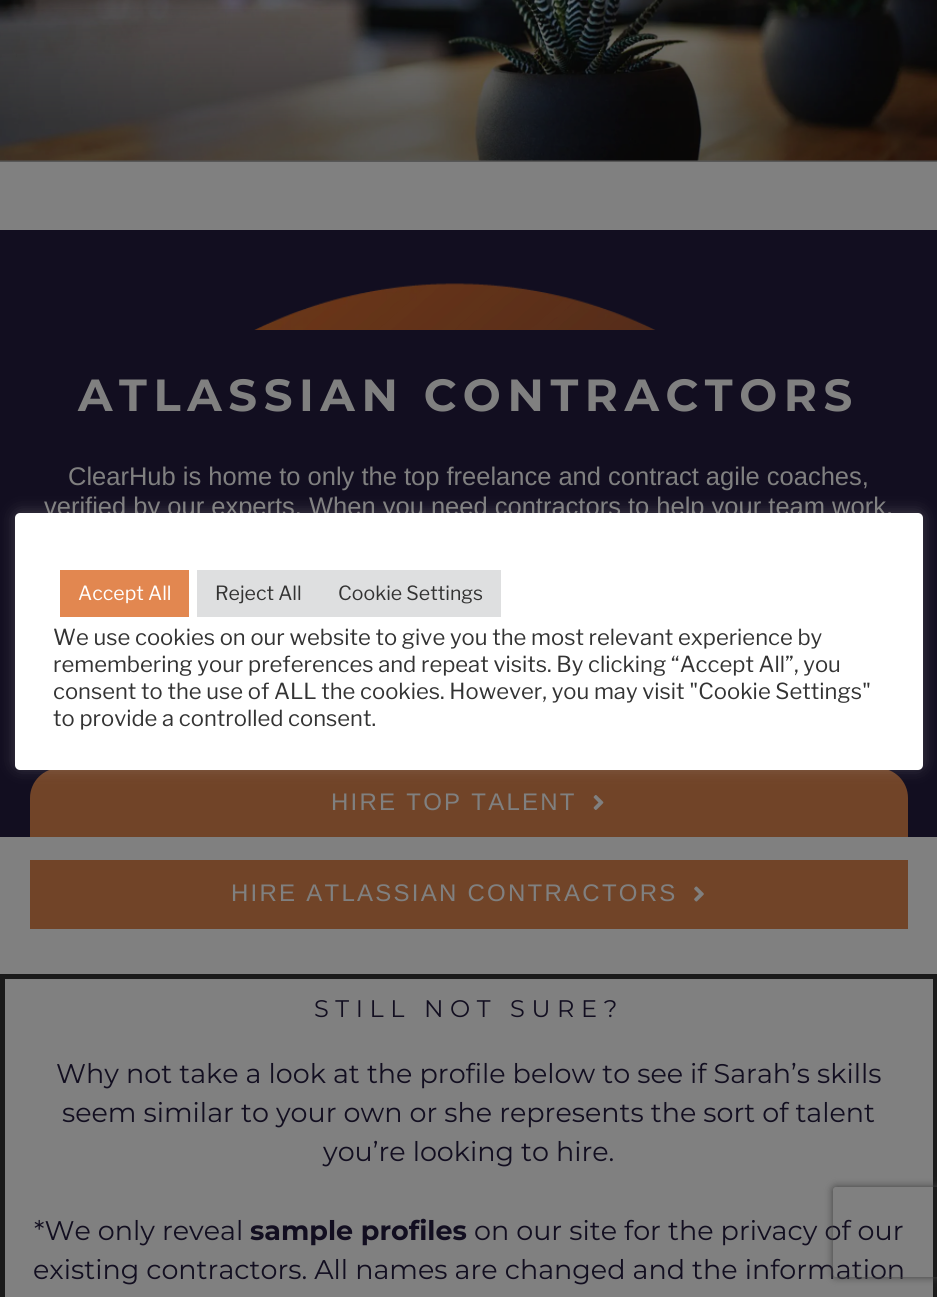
import math
import cairo

surface = cairo.ImageSurface(cairo.FORMAT_RGB24, 937, 1297)
ctx = cairo.Context(surface)
options = cairo.FontOptions()
options.set_hint_metrics(cairo.HINT_METRICS_OFF)
options.set_hint_style(cairo.HINT_STYLE_NONE)
ctx.set_font_options(options)
ctx.set_miter_limit(4)


def set_color(code):
    ctx.set_source_rgb(*(v / 255 for v in bytes.fromhex(code[-6:])))


def draw_text(x, y, s, family, size, color, bold=False, italic=False):
    ctx.select_font_face(family, cairo.FONT_SLANT_ITALIC if italic else cairo.FONT_SLANT_NORMAL, cairo.FONT_WEIGHT_BOLD if bold else cairo.FONT_WEIGHT_NORMAL)
    ctx.set_font_size(size)
    set_color(color)
    ctx.move_to(x, y)
    ctx.show_text(s)


def draw_spaced(x, y, s, letter, word):
    ctx.move_to(x, y)
    for ch in s:
        ctx.show_text(ch)
        ctx.rel_move_to(letter + word * (ch == ' '), 0)


def fill_rect(x, y, w, h, color):
    set_color(color)
    ctx.rectangle(x, y, w, h)
    ctx.fill()


def rounded_rect(x, y, w, h, r):
    ctx.new_sub_path()
    for i, (u, v) in enumerate([(x + w - r, y + h - r), (x + r, y + h - r), (x + r, y + r), (x + w - r, y + r)]):
        ctx.arc(u, v, r, i * math.pi / 2, (i + 1) * math.pi / 2)
    ctx.close_path()


def draw_shadow(x, y, w, h, r, blur, alpha):
    ctx.push_group_with_content(cairo.CONTENT_ALPHA)
    ctx.set_operator(cairo.OPERATOR_SOURCE)
    for i in range(15, -16, -2):
        e = blur * i / 6
        if min(w, h) + 2 * e > 0:
            ctx.set_source_rgba(0, 0, 0, alpha * math.erfc((i - 1) / 8.5) / 2)
            rounded_rect(x - e, y - e, w + 2 * e, h + 2 * e, max(0, min(r + e + blur * .6, min(w, h) / 2 + e)))
            ctx.fill()
    ctx.mask(ctx.pop_group())


def draw_image(path, x, y, w, h):
    ctx.save()
    ctx.set_source_surface(cairo.ImageSurface.create_from_png(path), x, y)
    ctx.rectangle(x, y, w, h)
    ctx.fill()
    ctx.restore()


set_color("#808080")
ctx.paint()
fill_rect(0, 160, 937, 2, "#7d7d7d")
draw_image("assets/img1.png", 0, 0, 937, 161)
gradient = cairo.LinearGradient(469, 0, 469, 162)
gradient.add_color_stop_rgba(0, 0, 0, 0, 0)
gradient.add_color_stop_rgba(0.75, 0, 0, 0, 0.3)
gradient.add_color_stop_rgba(1, 0, 0, 0, 0.3)
ctx.set_source(gradient)
ctx.rectangle(0, 9, 937, 153)
ctx.fill()
fill_rect(0, 230, 937, 607, "#120e20")
draw_image("assets/img2.png", 254, 283, 402, 47)
ctx.select_font_face("Montserrat", cairo.FONT_SLANT_NORMAL, cairo.FONT_WEIGHT_BOLD)
ctx.set_font_size(45)
set_color("#808080")
draw_spaced(78, 411, "ATLASSIAN CONTRACTORS", 6.6, 0)
draw_text(68, 485, "ClearHub is home to only the top freelance and contract agile coaches,", "Liberation Sans", 25.5, "#808080")
draw_text(44, 515, "verified by our experts. When you need contractors to help your team work,", "Liberation Sans", 25.5, "#808080")
set_color("#714428")
ctx.new_path()
ctx.move_to(60, 768)
ctx.line_to(878, 768)
ctx.curve_to(894.5, 768, 908, 781.5, 908, 798)
ctx.line_to(908, 837)
ctx.line_to(30, 837)
ctx.line_to(30, 798)
ctx.curve_to(30, 781.5, 43.5, 768, 60, 768)
ctx.close_path()
ctx.fill()
ctx.set_font_size(24)
set_color("#808080")
draw_spaced(331, 810, "HIRE TOP TALENT", 2.25, 0)
draw_image("assets/img3.png", 593, 795, 11, 15)
fill_rect(30, 860, 878, 69, "#714428")
set_color("#808080")
draw_spaced(231, 901, "HIRE ATLASSIAN CONTRACTORS", 2.25, 0)
draw_image("assets/img4.png", 694, 886, 10, 16)
ctx.rectangle(2.5, 976.5, 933, 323)
set_color("#1a1a1a")
ctx.set_line_width(5)
ctx.stroke()
ctx.select_font_face("Montserrat")
set_color("#120e20")
draw_spaced(314, 1017, "STILL NOT SURE?", 6.6, 0)
draw_text(56, 1083, "Why not take a look at the profile below to see if Sarah’s skills", "Montserrat", 27, "#120e20")
draw_text(62, 1122, "seem similar to your own or she represents the sort of talent", "Montserrat", 27, "#120e20")
draw_text(323, 1161, "you’re looking to hire.", "Montserrat", 27, "#120e20")
draw_text(34, 1240, "*We only reveal", "Montserrat", 27, "#120e20")
draw_text(250, 1240, "sample profiles", "Montserrat", 27, "#120e20", bold=True)
draw_text(474, 1240, "on our site for the privacy of our", "Montserrat", 27, "#120e20")
draw_text(33, 1279, "existing contractors. All names are changed and the information", "Montserrat", 27, "#120e20")
set_color("#acabab")
draw_shadow(15, 512, 908, 256, 5, 7.5, 0.3)
set_color("#ffffff")
rounded_rect(15, 513, 908, 257, 5)
ctx.fill()
fill_rect(60, 570, 129, 47, "#e28750")
draw_text(78, 600, "Accept All", "Libre Franklin Thin", 19.5, "#ffffff")
fill_rect(197, 570, 304, 47, "#dedfe0")
draw_text(215, 600, "Reject All", "Libre Franklin Thin", 19.5, "#333333")
draw_text(338, 600, "Cookie Settings", "Libre Franklin Thin", 19.5, "#333333")
draw_text(53, 645, "We use cookies on our website to give you the most relevant experience by", "Libre Franklin Thin", 22, "#333333")
draw_text(53, 672, "remembering your preferences and repeat visits. By clicking “Accept All”, you", "Libre Franklin Thin", 22, "#333333")
draw_text(53, 699, "consent to the use of ALL the cookies. However, you may visit \"Cookie Settings\"", "Libre Franklin Thin", 22, "#333333")
draw_text(53, 726, "to provide a controlled consent.", "Libre Franklin Thin", 22, "#333333")
ctx.save()
ctx.set_fill_rule(cairo.FILL_RULE_EVEN_ODD)
ctx.new_path()
ctx.move_to(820, 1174)
ctx.line_to(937, 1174)
ctx.line_to(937, 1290)
ctx.line_to(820, 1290)
ctx.close_path()
ctx.move_to(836, 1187)
ctx.line_to(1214, 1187)
ctx.curve_to(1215.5, 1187, 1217, 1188.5, 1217, 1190)
ctx.line_to(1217, 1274)
ctx.curve_to(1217, 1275.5, 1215.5, 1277, 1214, 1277)
ctx.line_to(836, 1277)
ctx.curve_to(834.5, 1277, 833, 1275.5, 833, 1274)
ctx.line_to(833, 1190)
ctx.curve_to(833, 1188.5, 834.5, 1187, 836, 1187)
ctx.close_path()
ctx.clip()
set_color("#404040")
draw_shadow(833, 1187, 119, 90, 3, 4, 1)
ctx.restore()
surface.write_to_png("output.png")
